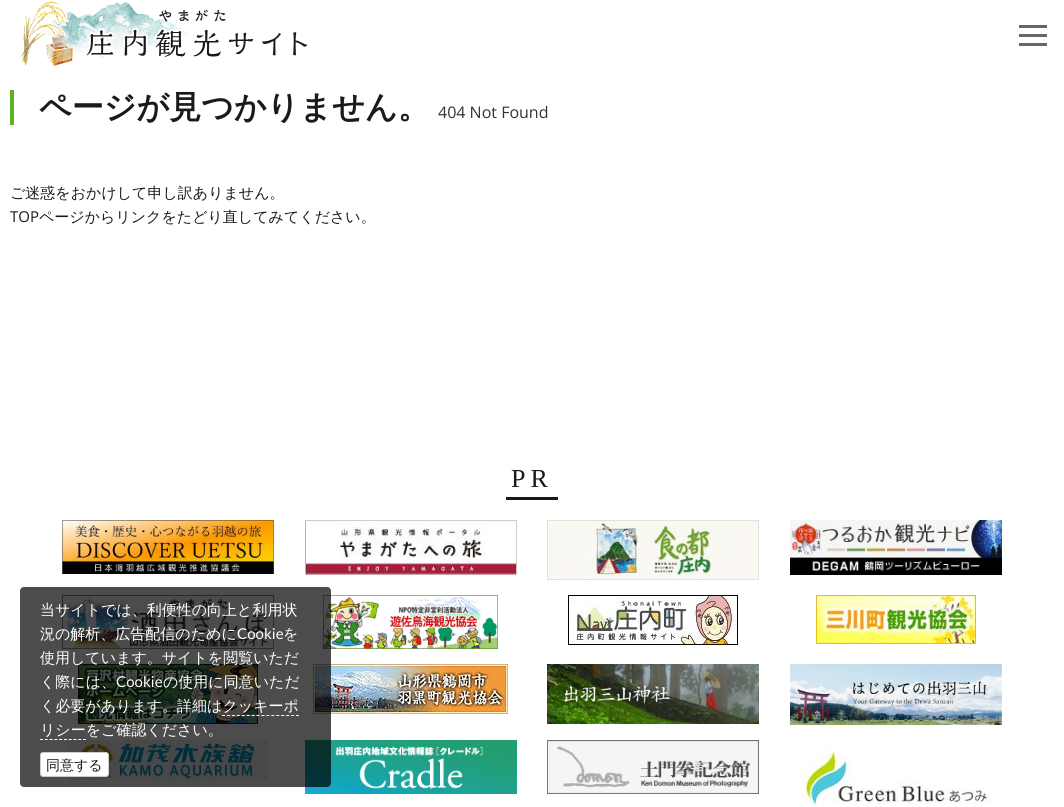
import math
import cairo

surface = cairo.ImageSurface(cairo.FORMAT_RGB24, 1064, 807)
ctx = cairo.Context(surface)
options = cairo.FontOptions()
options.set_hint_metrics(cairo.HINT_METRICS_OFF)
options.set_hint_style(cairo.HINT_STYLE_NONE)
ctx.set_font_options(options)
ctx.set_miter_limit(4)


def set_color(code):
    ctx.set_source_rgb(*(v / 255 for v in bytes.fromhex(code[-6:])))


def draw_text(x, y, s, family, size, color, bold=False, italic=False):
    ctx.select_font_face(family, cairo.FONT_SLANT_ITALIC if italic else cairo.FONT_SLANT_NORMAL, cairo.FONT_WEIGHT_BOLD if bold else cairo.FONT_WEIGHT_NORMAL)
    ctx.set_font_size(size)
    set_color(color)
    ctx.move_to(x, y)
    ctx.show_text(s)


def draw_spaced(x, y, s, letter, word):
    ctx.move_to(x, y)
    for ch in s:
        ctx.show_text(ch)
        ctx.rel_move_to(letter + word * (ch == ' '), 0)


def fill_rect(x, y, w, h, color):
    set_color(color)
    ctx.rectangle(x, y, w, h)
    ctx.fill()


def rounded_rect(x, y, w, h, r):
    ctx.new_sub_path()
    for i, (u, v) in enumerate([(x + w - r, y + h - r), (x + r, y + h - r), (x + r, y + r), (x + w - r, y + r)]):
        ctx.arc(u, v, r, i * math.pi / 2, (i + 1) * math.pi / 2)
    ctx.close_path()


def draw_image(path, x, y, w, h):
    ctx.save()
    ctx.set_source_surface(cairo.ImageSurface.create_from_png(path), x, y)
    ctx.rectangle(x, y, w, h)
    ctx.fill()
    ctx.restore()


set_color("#ffffff")
ctx.paint()
draw_image("assets/img1.png", 21, 1, 286, 65)
fill_rect(1019, 34, 28, 3, "#666666")
fill_rect(1019, 25, 28, 3, "#666666")
fill_rect(1019, 43, 28, 3, "#666666")
fill_rect(10, 90, 4, 35, "#59b320")
draw_text(39, 118, "ページが見つかりません。", "WenQuanYi Zen Hei", 32, "#1a1a1a", bold=True)
draw_text(438, 118, "404 Not Found", "Open Sans", 16, "#333333")
draw_text(10, 198, "ご迷惑をおかけして申し訳ありません。", "WenQuanYi Zen Hei Medium", 15, "#1a1a1a")
draw_text(10, 222, "TOP", "Open Sans", 15, "#1a1a1a")
draw_text(39, 222, "ページからリンクをたどり直してみてください。", "WenQuanYi Zen Hei Medium", 15, "#1a1a1a")
fill_rect(506, 497, 52, 3, "#191919")
ctx.select_font_face("Liberation Serif")
ctx.set_font_size(26)
set_color("#1a1a1a")
draw_spaced(511, 487, "PR", 5, 0)
draw_image("assets/img2.png", 62, 520, 212, 54)
draw_image("assets/img3.png", 305, 520, 212, 55)
draw_image("assets/img4.png", 547, 520, 212, 60)
draw_image("assets/img5.png", 790, 520, 212, 55)
draw_image("assets/img6.png", 62, 595, 212, 54)
draw_image("assets/img7.png", 323, 595, 175, 54)
draw_image("assets/img8.png", 568, 595, 170, 50)
draw_image("assets/img9.png", 816, 595, 160, 49)
draw_image("assets/img10.png", 78, 664, 180, 60)
draw_image("assets/img11.png", 313, 664, 195, 50)
draw_image("assets/img12.png", 547, 664, 212, 60)
draw_image("assets/img13.png", 790, 664, 212, 61)
draw_image("assets/img14.png", 68, 740, 200, 40)
draw_image("assets/img15.png", 305, 740, 212, 54)
draw_image("assets/img16.png", 547, 740, 212, 54)
draw_image("assets/img17.png", 802, 740, 188, 65)
ctx.set_source_rgba(0, 0, 0, 0.7)
rounded_rect(20, 587, 311, 200, 4)
ctx.fill()
draw_text(40, 615, "当サイトでは、利便性の向上と利用状", "WenQuanYi Zen Hei Medium", 15, "#ffffff")
draw_text(40, 639, "況の解析、広告配信のために", "WenQuanYi Zen Hei Medium", 15, "#ffffff")
draw_text(237, 639, "Cookie", "Lato", 15, "#ffffff")
draw_text(283, 639, "を", "WenQuanYi Zen Hei Medium", 15, "#ffffff")
draw_text(40, 663, "使用しています。サイトを閲覧いただ", "WenQuanYi Zen Hei Medium", 15, "#ffffff")
draw_text(40, 687, "く際には、", "WenQuanYi Zen Hei Medium", 15, "#ffffff")
draw_text(116, 687, "Cookie", "Lato", 15, "#ffffff")
draw_text(163, 687, "の使用に同意いただ", "WenQuanYi Zen Hei Medium", 15, "#ffffff")
draw_text(40, 711, "く必要があります。詳細はクッキーポ", "WenQuanYi Zen Hei Medium", 15, "#ffffff")
draw_text(40, 735, "リシーをご確認ください。", "WenQuanYi Zen Hei Medium", 15, "#ffffff")
ctx.new_path()
ctx.move_to(222, 715.5)
ctx.line_to(299, 715.5)
ctx.set_line_width(1)
ctx.set_dash([3, 1.93])
ctx.stroke()
ctx.new_path()
ctx.move_to(40, 739.5)
ctx.line_to(86, 739.5)
ctx.set_dash([3, 1.78])
ctx.stroke()
rounded_rect(40.5, 752.5, 68, 24, 2.5)
ctx.fill_preserve()
set_color("#cccccc")
ctx.set_dash([])
ctx.stroke()
draw_text(46, 770, "同意する", "WenQuanYi Zen Hei Medium", 14, "#1a1a1a")
surface.write_to_png("output.png")
